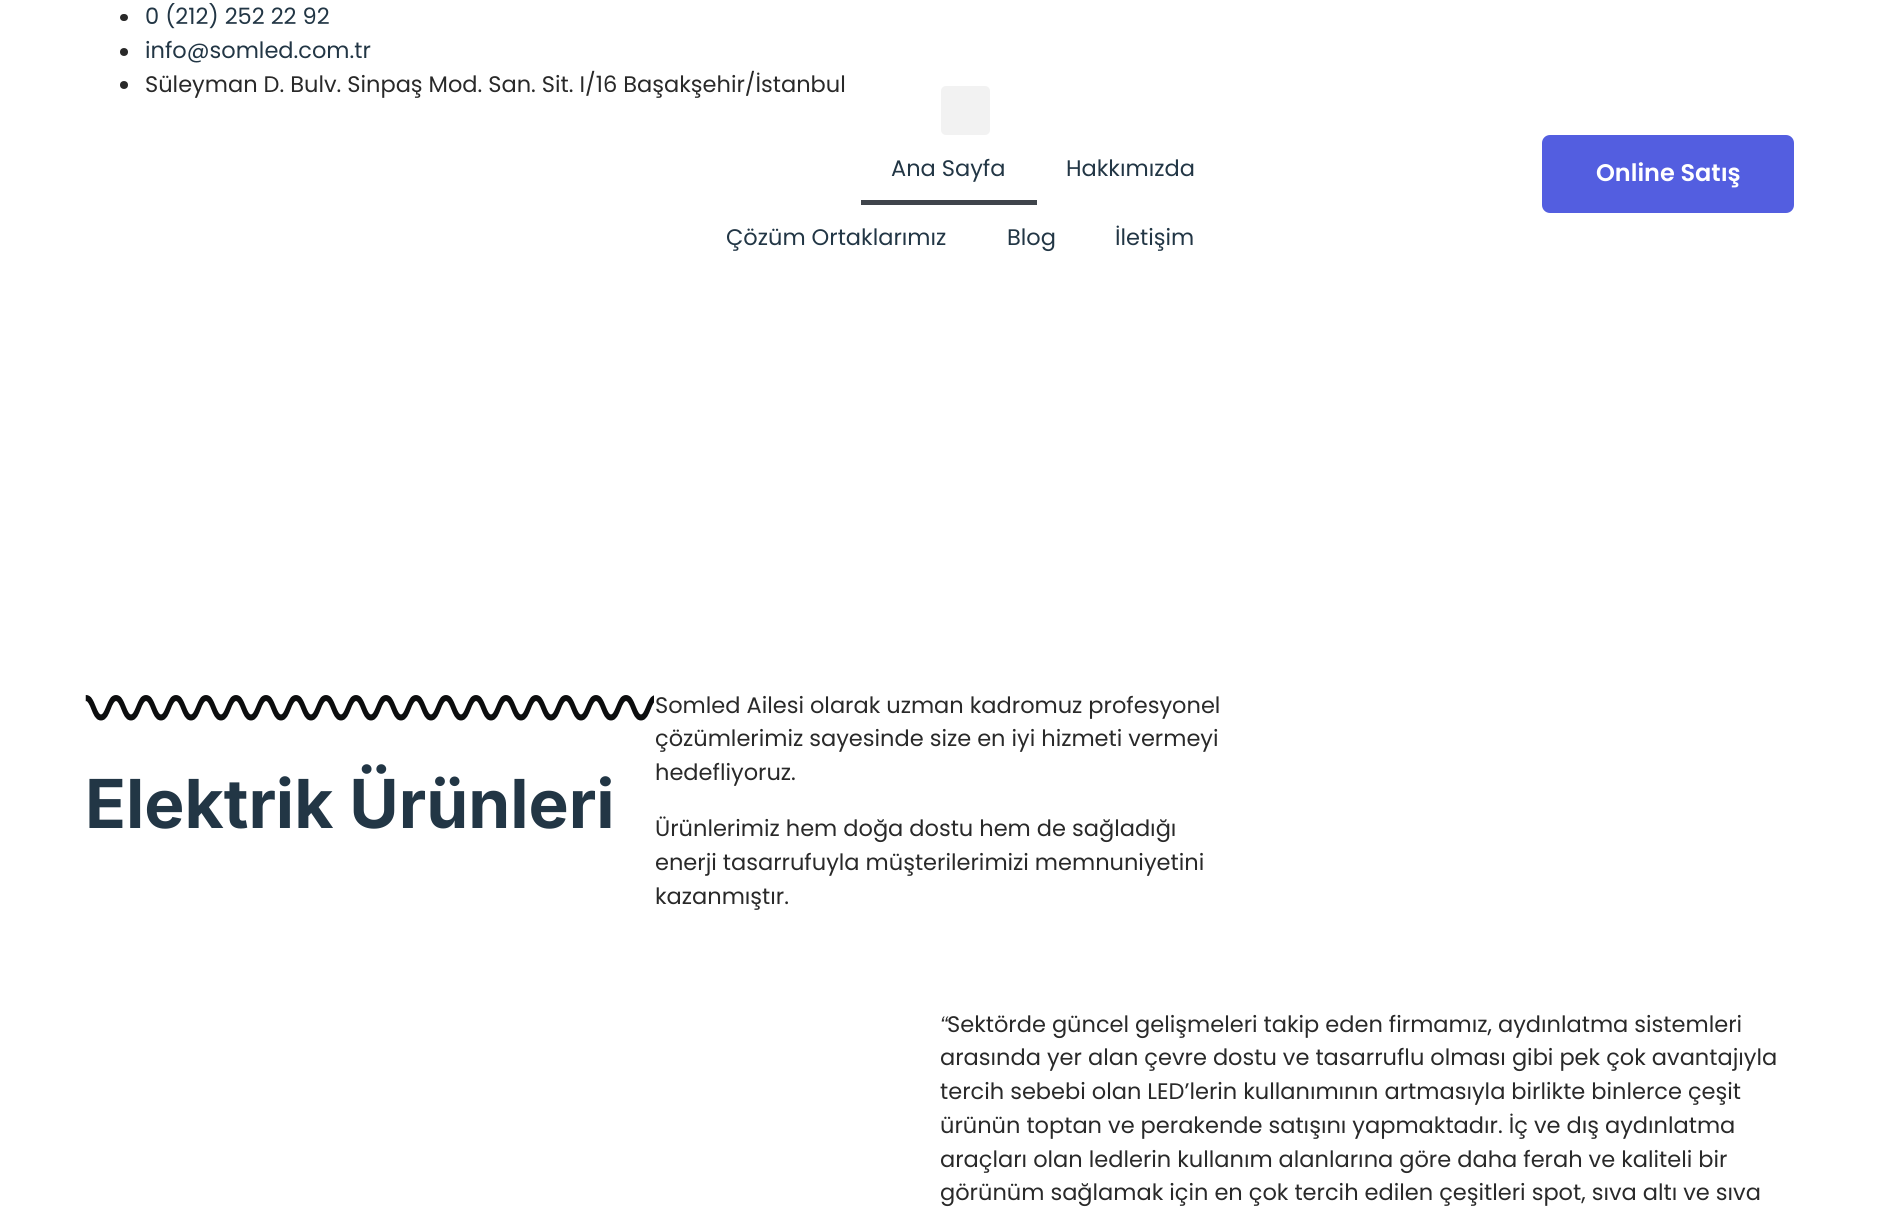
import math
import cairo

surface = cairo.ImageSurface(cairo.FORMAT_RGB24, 1879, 1223)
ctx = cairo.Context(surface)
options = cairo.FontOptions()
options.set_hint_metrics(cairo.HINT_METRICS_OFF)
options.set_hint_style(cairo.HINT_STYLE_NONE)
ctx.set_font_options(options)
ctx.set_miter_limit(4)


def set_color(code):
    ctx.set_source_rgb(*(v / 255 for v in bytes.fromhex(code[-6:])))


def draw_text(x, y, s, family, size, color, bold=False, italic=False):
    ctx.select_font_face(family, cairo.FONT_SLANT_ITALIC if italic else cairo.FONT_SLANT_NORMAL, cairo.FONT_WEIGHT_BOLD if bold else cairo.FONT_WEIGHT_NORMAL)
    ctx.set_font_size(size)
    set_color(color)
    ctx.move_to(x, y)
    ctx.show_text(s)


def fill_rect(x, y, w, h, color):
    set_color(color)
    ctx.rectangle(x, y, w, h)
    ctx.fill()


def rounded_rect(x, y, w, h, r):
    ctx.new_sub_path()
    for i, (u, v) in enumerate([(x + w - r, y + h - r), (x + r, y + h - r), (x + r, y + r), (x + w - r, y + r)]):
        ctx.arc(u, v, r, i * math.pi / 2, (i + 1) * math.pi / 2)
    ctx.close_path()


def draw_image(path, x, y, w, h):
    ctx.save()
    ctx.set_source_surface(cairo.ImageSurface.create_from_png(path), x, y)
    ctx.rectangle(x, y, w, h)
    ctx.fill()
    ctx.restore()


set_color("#ffffff")
ctx.paint()
set_color("#292929")
rounded_rect(120, 14, 8, 7, 3.5)
ctx.fill()
draw_text(145, 24, "0 (212) 252 22 92", "Poppins", 22.5, "#223645")
set_color("#292929")
ctx.new_path()
ctx.arc(124, 52, 4, 0, 2 * math.pi)
ctx.fill()
draw_text(145, 58, "info@somled.com.tr", "Poppins", 22.5, "#223645")
set_color("#292929")
ctx.new_path()
ctx.arc(124, 85, 4, 0, 2 * math.pi)
ctx.fill()
draw_text(145, 92, "Süleyman D. Bulv. Sinpaş Mod. San. Sit. I/16 Başakşehir/İstanbul", "Poppins", 22.5, "#292929")
set_color("#f2f2f2")
rounded_rect(941, 86, 49, 49, 5)
ctx.fill()
draw_text(891, 176, "Ana Sayfa", "Poppins", 22.5, "#223645")
fill_rect(861, 200, 176, 5, "#3f444b")
draw_text(1066, 176, "Hakkımızda", "Poppins", 22.5, "#223645")
draw_text(726, 245, "Çözüm Ortaklarımız", "Poppins", 22.5, "#223645")
draw_text(1007, 245, "Blog", "Poppins", 22.5, "#223645")
draw_text(1115, 245, "İletişim", "Poppins", 22.5, "#223645")
set_color("#535ee0")
rounded_rect(1543, 136, 250, 76, 7)
ctx.fill_preserve()
ctx.stroke()
draw_text(1596, 181, "Online Satış", "Poppins SemiBold", 24, "#ffffff")
draw_image("assets/img1.png", 85, 695, 569, 26)
draw_text(85, 828, "Elektrik Ürünleri", "Inter", 67.5, "#223645", bold=True)
draw_text(655, 713, "Somled Ailesi olarak uzman kadromuz profesyonel", "Poppins", 22.5, "#292929")
draw_text(655, 746, "çözümlerimiz sayesinde size en iyi hizmeti vermeyi", "Poppins", 22.5, "#292929")
draw_text(655, 780, "hedefliyoruz.", "Poppins", 22.5, "#292929")
draw_text(655, 836, "Ürünlerimiz hem doğa dostu hem de sağladığı", "Poppins", 22.5, "#292929")
draw_text(655, 870, "enerji tasarrufuyla müşterilerimizi memnuniyetini", "Poppins", 22.5, "#292929")
draw_text(655, 904, "kazanmıştır.", "Poppins", 22.5, "#292929")
draw_text(940, 1032, "“", "Liberation Sans", 22.5, "#292929", italic=True)
draw_text(947, 1032, "Sektörde güncel gelişmeleri takip eden firmamız, aydınlatma sistemleri", "Poppins", 22.5, "#292929")
draw_text(940, 1065, "arasında yer alan çevre dostu ve tasarruflu olması gibi pek çok avantajıyla", "Poppins", 22.5, "#292929")
draw_text(940, 1099, "tercih sebebi olan LED’lerin kullanımının artmasıyla birlikte binlerce çeşit", "Poppins", 22.5, "#292929")
draw_text(940, 1133, "ürünün toptan ve perakende satışını yapmaktadır. İç ve dış aydınlatma", "Poppins", 22.5, "#292929")
draw_text(940, 1167, "araçları olan ledlerin kullanım alanlarına göre daha ferah ve kaliteli bir", "Poppins", 22.5, "#292929")
draw_text(940, 1200, "görünüm sağlamak için en çok tercih edilen çeşitleri spot, sıva altı ve sıva", "Poppins", 22.5, "#292929")
surface.write_to_png("output.png")
